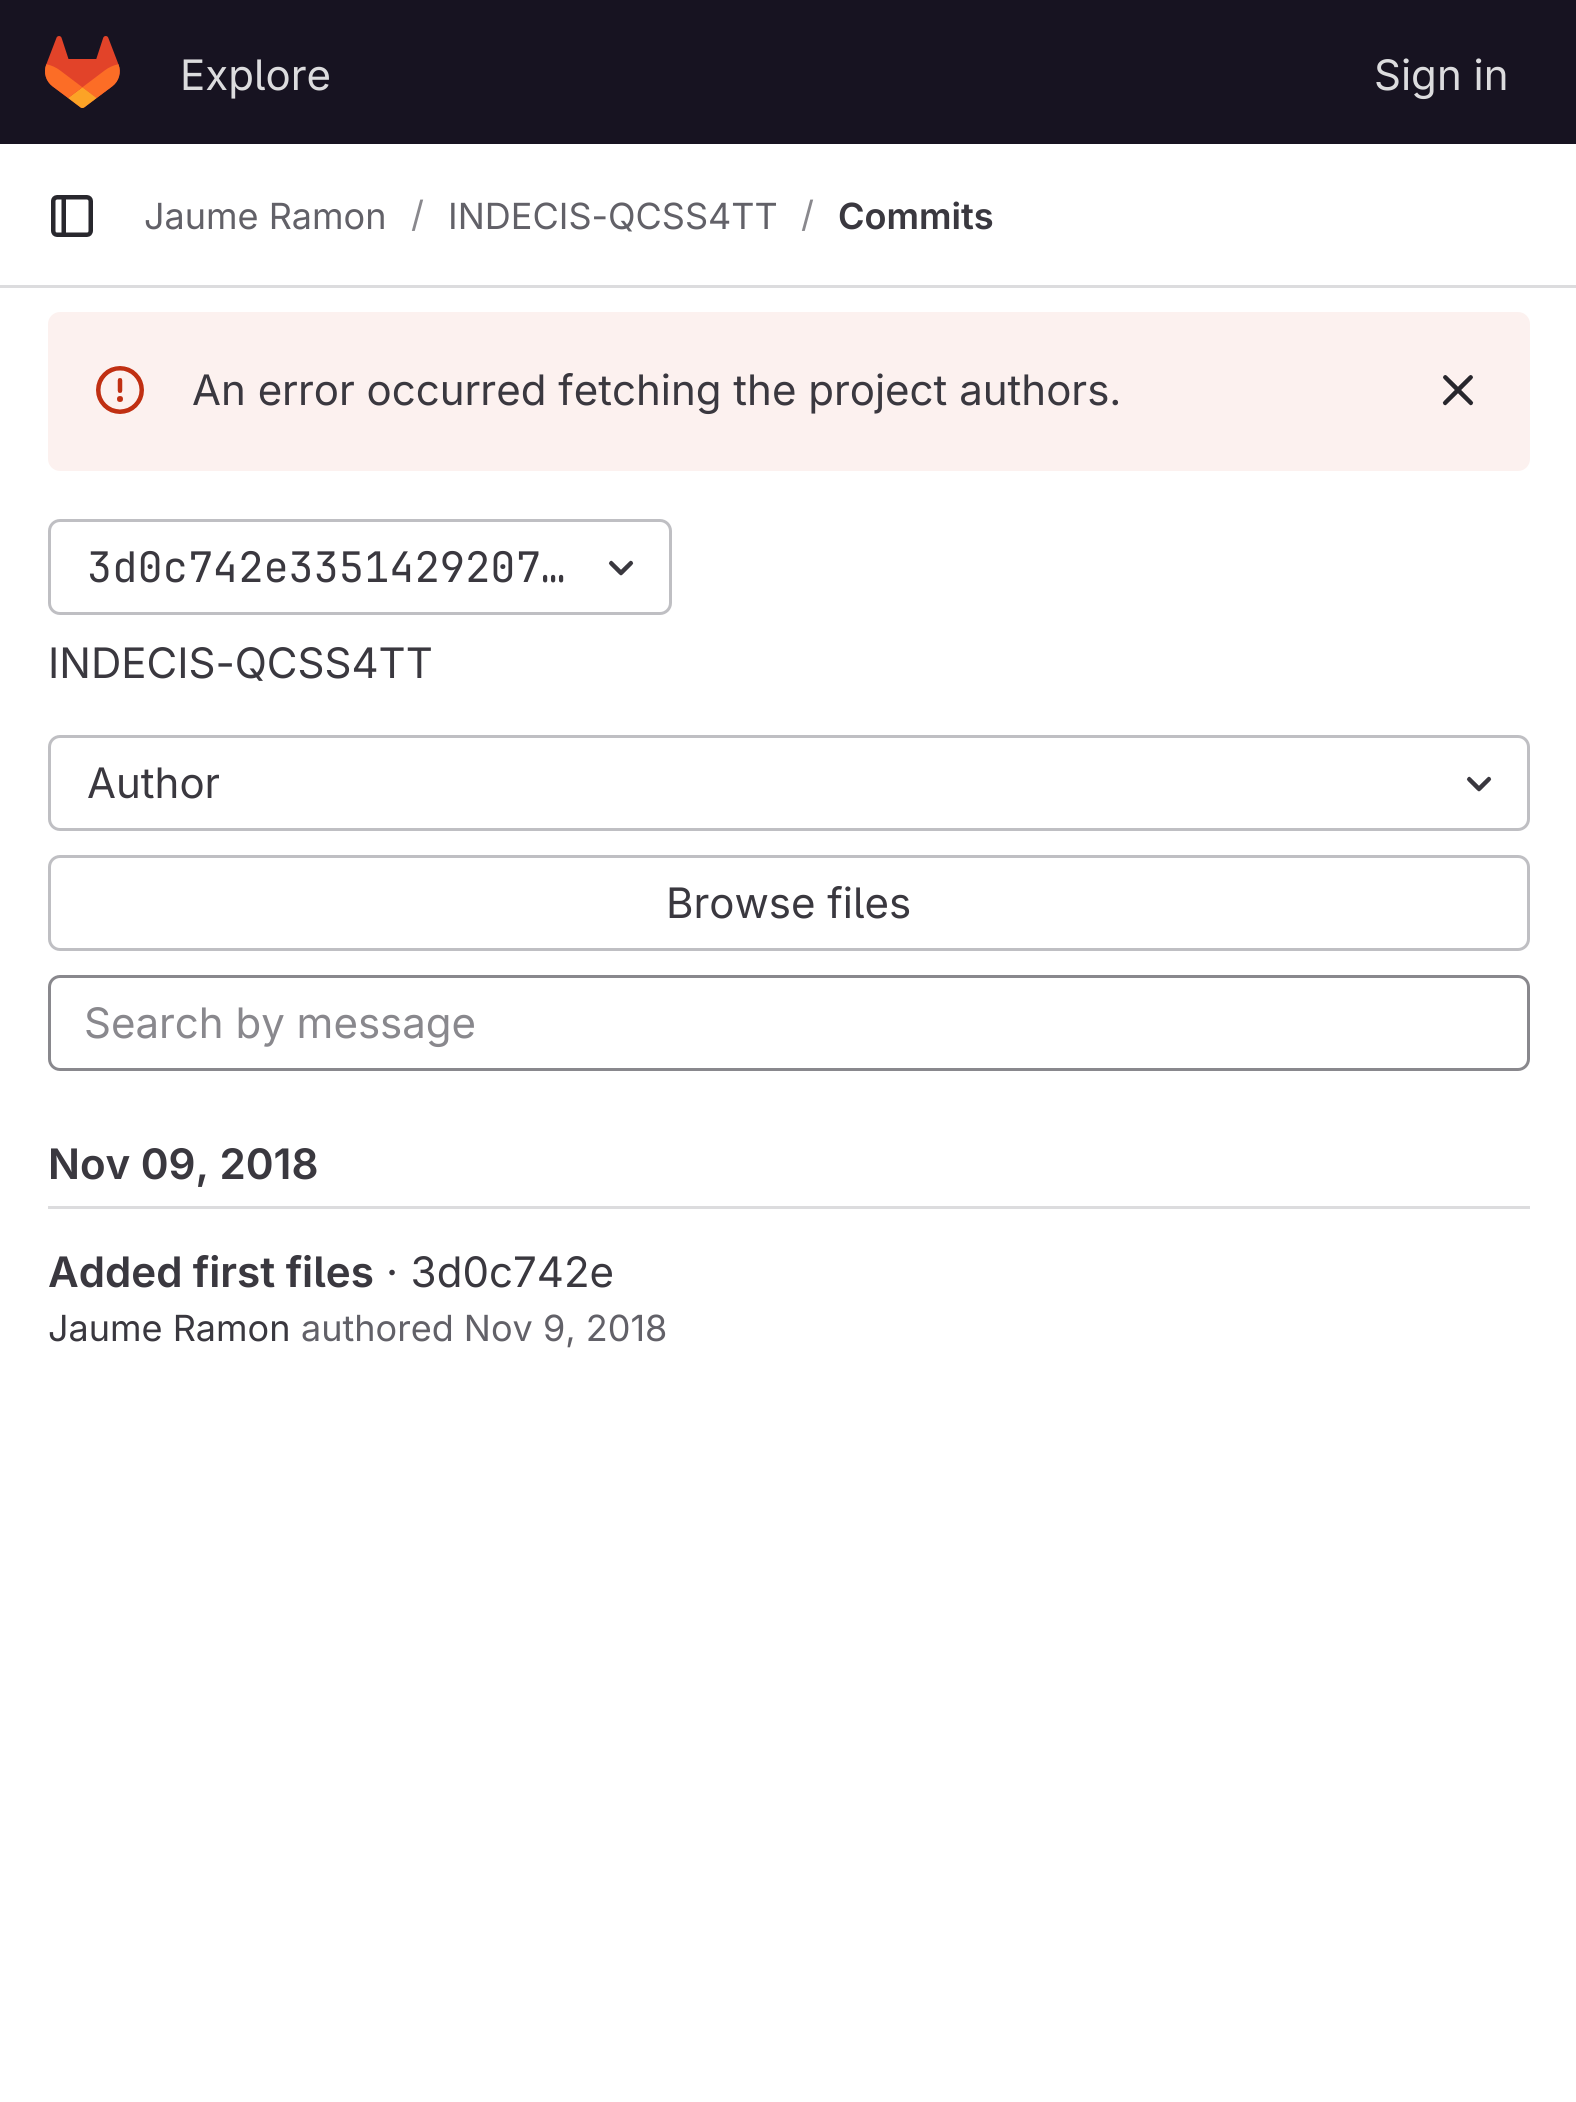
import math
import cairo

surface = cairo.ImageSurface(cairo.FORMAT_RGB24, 1576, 2102)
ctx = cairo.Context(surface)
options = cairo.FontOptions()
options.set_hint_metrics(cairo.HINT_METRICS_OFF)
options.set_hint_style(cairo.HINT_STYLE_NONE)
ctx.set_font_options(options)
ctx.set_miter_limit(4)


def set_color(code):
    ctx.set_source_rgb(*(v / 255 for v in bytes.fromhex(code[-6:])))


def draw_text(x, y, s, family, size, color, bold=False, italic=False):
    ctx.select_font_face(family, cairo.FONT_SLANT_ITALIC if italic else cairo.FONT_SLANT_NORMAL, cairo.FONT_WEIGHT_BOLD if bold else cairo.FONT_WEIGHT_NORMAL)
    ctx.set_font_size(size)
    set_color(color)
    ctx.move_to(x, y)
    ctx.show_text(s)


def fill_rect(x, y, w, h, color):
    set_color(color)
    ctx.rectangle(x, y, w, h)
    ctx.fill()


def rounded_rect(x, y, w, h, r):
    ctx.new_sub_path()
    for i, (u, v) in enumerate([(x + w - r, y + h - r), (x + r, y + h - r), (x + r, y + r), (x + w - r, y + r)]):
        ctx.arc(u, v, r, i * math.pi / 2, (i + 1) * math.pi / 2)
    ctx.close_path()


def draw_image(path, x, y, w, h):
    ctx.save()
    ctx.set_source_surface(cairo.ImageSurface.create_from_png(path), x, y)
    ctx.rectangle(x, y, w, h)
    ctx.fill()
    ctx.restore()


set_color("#ffffff")
ctx.paint()
fill_rect(0, 0, 1576, 144, "#171321")
draw_image("assets/img1.png", 45, 36, 75, 72)
draw_text(180, 90, "Explore", "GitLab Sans", 42, "#dcdcde")
draw_text(1374, 90, "Sign in", "GitLab Sans", 42, "#dcdcde")
fill_rect(0, 285, 1576, 3, "#dcdcde")
draw_image("assets/img2.png", 51, 195, 42, 42)
draw_text(144, 229, "Jaume Ramon", "GitLab Sans", 36, "#626168")
draw_text(411, 227, "/", "GitLab Sans", 36, "#89888d")
draw_text(448, 229, "INDECIS-QCSS4TT", "GitLab Sans", 36, "#626168")
draw_text(801, 227, "/", "GitLab Sans", 36, "#89888d")
draw_text(838, 229, "Commits", "GitLab Sans SemiBold", 36, "#3a383f")
set_color("#fcf1ef")
rounded_rect(48, 312, 1482, 159, 12)
ctx.fill()
draw_image("assets/img3.png", 96, 366, 48, 48)
draw_text(192, 405, "An error occurred fetching the project authors.", "GitLab Sans", 42, "#3a383f")
draw_image("assets/img4.png", 1442, 375, 32, 31)
rounded_rect(49.5, 520.5, 621, 93, 10.5)
set_color("#bfbfc3")
ctx.set_line_width(3)
ctx.stroke()
draw_text(87, 582, "3d0c742e3351429207…", "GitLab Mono", 42, "#3a383f")
draw_image("assets/img5.png", 608, 560, 26, 16)
draw_text(48, 678, "INDECIS-QCSS4TT", "GitLab Sans", 42, "#3a383f")
rounded_rect(49.5, 736.5, 1479, 93, 10.5)
set_color("#bfbfc3")
ctx.stroke()
ctx.save()
ctx.rectangle(87, 759, 132, 48)
ctx.clip()
draw_text(87, 798, "Author", "GitLab Sans", 42, "#3a383f")
ctx.restore()
draw_image("assets/img5.png", 1466, 776, 26, 16)
rounded_rect(49.5, 856.5, 1479, 93, 10.5)
ctx.stroke()
draw_text(666, 918, "Browse files", "GitLab Sans", 42, "#3a383f")
rounded_rect(49.5, 976.5, 1479, 93, 10.5)
set_color("#89888d")
ctx.stroke()
draw_text(84, 1038, "Search by message", "GitLab Sans", 42, "#89888d")
draw_text(48, 1179, "Nov 09, 2018", "GitLab Sans SemiBold", 42, "#3a383f")
fill_rect(48, 1206, 1482, 3, "#dcdcde")
draw_text(48, 1287, "Added first files", "GitLab Sans SemiBold", 42, "#3a383f")
draw_text(386, 1287, "· 3d0c742e", "GitLab Sans", 42, "#3a383f")
draw_text(48, 1341, "Jaume Ramon", "GitLab Sans", 36, "#3a383f")
draw_text(301, 1341, "authored Nov 9, 2018", "GitLab Sans", 36, "#626168")
surface.write_to_png("output.png")
